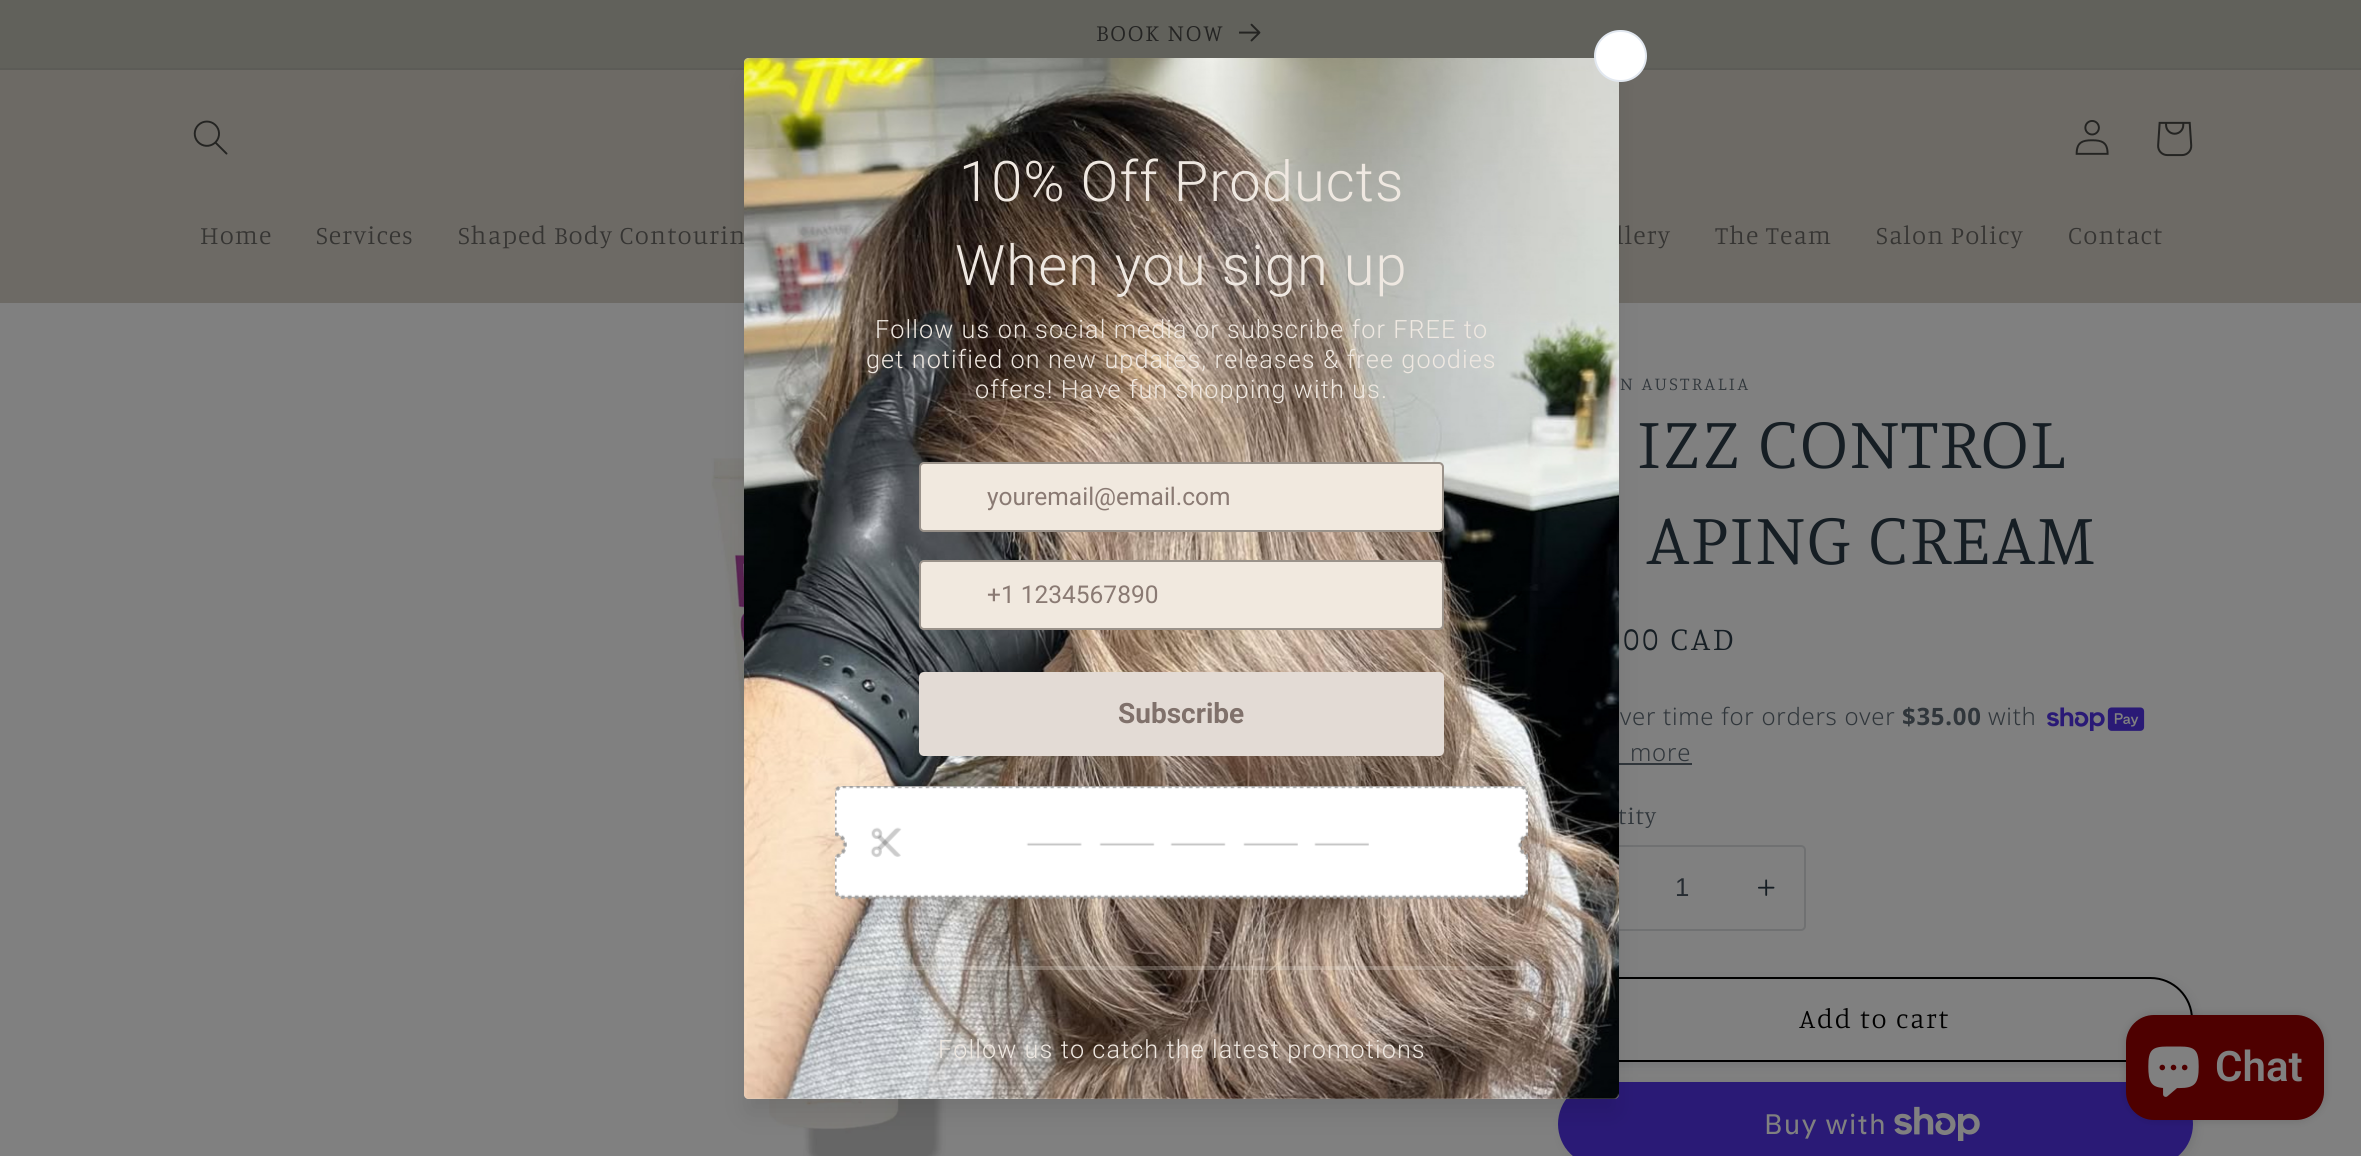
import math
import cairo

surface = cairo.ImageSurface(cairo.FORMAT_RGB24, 2361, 1156)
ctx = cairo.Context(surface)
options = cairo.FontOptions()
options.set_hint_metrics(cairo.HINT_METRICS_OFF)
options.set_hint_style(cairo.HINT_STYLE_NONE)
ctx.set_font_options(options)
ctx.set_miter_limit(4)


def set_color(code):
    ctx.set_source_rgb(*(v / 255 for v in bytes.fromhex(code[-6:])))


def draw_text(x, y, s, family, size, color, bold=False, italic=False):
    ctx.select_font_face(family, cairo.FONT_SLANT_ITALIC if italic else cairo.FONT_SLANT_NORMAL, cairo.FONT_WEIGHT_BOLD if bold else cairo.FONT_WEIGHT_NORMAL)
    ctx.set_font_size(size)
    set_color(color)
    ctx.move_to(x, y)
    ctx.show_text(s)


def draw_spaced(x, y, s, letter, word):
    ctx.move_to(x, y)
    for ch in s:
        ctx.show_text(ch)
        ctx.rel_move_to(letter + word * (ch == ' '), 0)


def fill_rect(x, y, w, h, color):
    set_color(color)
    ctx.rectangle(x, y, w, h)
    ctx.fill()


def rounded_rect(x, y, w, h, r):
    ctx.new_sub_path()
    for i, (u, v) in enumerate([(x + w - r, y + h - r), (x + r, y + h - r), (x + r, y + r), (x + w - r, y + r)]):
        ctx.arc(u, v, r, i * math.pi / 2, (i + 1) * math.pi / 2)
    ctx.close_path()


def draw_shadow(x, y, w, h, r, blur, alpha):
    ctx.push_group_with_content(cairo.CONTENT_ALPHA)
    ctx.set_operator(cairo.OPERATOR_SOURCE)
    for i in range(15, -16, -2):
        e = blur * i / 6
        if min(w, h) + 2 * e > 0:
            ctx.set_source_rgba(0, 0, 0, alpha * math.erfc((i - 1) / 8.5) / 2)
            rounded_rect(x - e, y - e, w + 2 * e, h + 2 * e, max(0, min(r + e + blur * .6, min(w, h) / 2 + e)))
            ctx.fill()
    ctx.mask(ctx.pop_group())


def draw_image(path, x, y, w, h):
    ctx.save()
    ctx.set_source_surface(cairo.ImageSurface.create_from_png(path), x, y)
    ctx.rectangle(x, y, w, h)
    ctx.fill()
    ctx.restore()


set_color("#808080")
ctx.paint()
fill_rect(0, 0, 2361, 68, "#61615b")
fill_rect(0, 68, 2361, 2, "#5c5c57")
ctx.select_font_face("Manuale Light")
ctx.set_font_size(23.9)
set_color("#242423")
draw_spaced(1096, 41, "BOOK NOW", 1.75, 0)
draw_image("assets/img1.png", 1239, 23, 22, 19)
gradient = cairo.LinearGradient(2195, -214, 167, 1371)
gradient.add_color_stop_rgba(1, 0.427, 0.416, 0.396, 1)
gradient.add_color_stop_rgba(1, 0.502, 0.376, 0.278, 1)
ctx.set_source(gradient)
ctx.rectangle(0, 70, 2361, 233)
ctx.fill()
draw_image("assets/img7.png", 711, 458, 288, 698)
fill_rect(1619, 763, 73, 2, "#30363b")
draw_image("assets/img9.png", 1758, 879, 17, 17)
rounded_rect(1559, 846, 246, 84, 4)
set_color("#707172")
ctx.stroke()
set_color("#161e24")
draw_shadow(1561, 980, 635, 86, 43, 4.5, 0.1)
set_color("#808080")
rounded_rect(1558, 977, 635, 85, 42.5)
ctx.fill()
rounded_rect(1559, 978, 633, 83, 41.5)
set_color("#000000")
ctx.stroke()
set_color("#161e24")
draw_shadow(1561, 1085, 635, 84, 42, 4.5, 0.1)
set_color("#2a1a76")
rounded_rect(1558, 1082, 635, 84, 42)
ctx.fill()
set_color("#000000")
draw_shadow(749, 81, 865, 1030, 0, 13, 0.1)
ctx.save()
ctx.rectangle(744, 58, 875, 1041)
ctx.clip()
draw_shadow(749, 63, 865, 1031, 0, 17.5, 0.12)
ctx.restore()
ctx.set_font_size(25.75)
set_color("#363533")
draw_spaced(458, 244, "Shaped Body Contourin", 1.1, 0)
draw_spaced(1616, 244, "llery", 1.1, 0)
ctx.set_font_size(23.9)
set_color("#30363b")
draw_spaced(1618, 824, "tity", 0.75, 0)
set_color("#ebe1d4")
rounded_rect(744, 58, 875, 1041, 5)
ctx.fill()
draw_image("assets/img2.png", 744, 58, 875, 1041)
set_color("#ffffff")
rounded_rect(1595, 31, 51, 50, 25)
ctx.fill_preserve()
set_color("#e2e8f0")
ctx.stroke()
ctx.select_font_face("Roboto Light")
ctx.set_font_size(56)
set_color("#efe8e1")
draw_spaced(959, 201, "10% Off Products", 1.1, 0)
draw_spaced(955, 285, "When you sign up", 1.1, 0)
ctx.set_font_size(25.2)
draw_spaced(875, 338, "Follow us on social media or subscribe for FREE to", 1.1, 0)
draw_spaced(866, 368, "get notified on new updates, releases & free goodies", 1.1, 0)
draw_spaced(975, 398, "offers! Have fun shopping with us.", 1.1, 0)
set_color("#f1e9df")
rounded_rect(920, 463, 523, 68, 4)
ctx.fill_preserve()
set_color("#9a928a")
ctx.stroke()
draw_text(987, 505, "youremail@email.com", "Roboto", 24.5, "#8a7a73")
set_color("#f1e9df")
rounded_rect(920, 561, 523, 68, 4)
ctx.fill_preserve()
set_color("#9a928a")
ctx.stroke()
draw_text(987, 603, "+1 1234567890", "Roboto", 24.5, "#8a7a73")
set_color("#e3dbd5")
rounded_rect(919, 672, 525, 84, 5)
ctx.fill()
draw_text(1118, 723, "Subscribe", "Roboto", 28, "#80716b", bold=True)
draw_image("assets/img3.png", 835, 786, 693, 114)
ctx.set_source_rgba(0.937, 0.91, 0.886, 0.25)
ctx.rectangle(835, 966, 693, 4)
ctx.fill()
ctx.select_font_face("Roboto Light")
ctx.set_font_size(25.2)
set_color("#efe8e1")
draw_spaced(938, 1058, "Follow us to catch the latest promotions", 1.1, 0)
draw_image("assets/img4.png", 193, 120, 35, 35)
draw_image("assets/img5.png", 2075, 120, 34, 35)
draw_image("assets/img6.png", 2157, 121, 36, 36)
ctx.select_font_face("Manuale Light")
ctx.set_font_size(25.75)
set_color("#363533")
draw_spaced(200, 244, "Home", 1.1, 0)
draw_spaced(316, 244, "Services", 1.1, 0)
draw_spaced(1715, 244, "The Team", 1.1, 0)
draw_spaced(1876, 244, "Salon Policy", 1.1, 0)
draw_spaced(2068, 244, "Contact", 1.1, 0)
ctx.set_font_size(18.5)
set_color("#30363b")
draw_spaced(1620, 390, "N AUSTRALIA", 2.4, 0)
ctx.set_font_size(73.5)
set_color("#161e24")
draw_spaced(1637, 468, "IZZ CONTROL", 1.1, 0)
draw_spaced(1646, 564, "APING CREAM", 1.1, 0)
ctx.set_font_size(33)
draw_spaced(1623, 650, "00 CAD", 2.4, 0)
ctx.select_font_face("Noto Sans Light")
ctx.set_font_size(23.9)
set_color("#30363b")
draw_spaced(1620, 725, "ver time for orders over", 0.75, 0)
ctx.select_font_face("Noto Sans", cairo.FONT_SLANT_NORMAL, cairo.FONT_WEIGHT_BOLD)
draw_spaced(1902, 725, "$35.00", 0.75, 0)
ctx.select_font_face("Noto Sans Light")
draw_spaced(1988, 725, "with", 0.75, 0)
draw_image("assets/img8.png", 2047, 707, 98, 24)
draw_spaced(1630, 761, "more", 0.75, 0)
draw_text(1675, 896, "1", "Liberation Sans", 25.75, "#262c32")
ctx.select_font_face("Manuale Light")
ctx.set_font_size(27.5)
set_color("#000000")
draw_spaced(1799, 1028, "Add to cart", 1.75, 0)
ctx.select_font_face("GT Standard")
ctx.set_font_size(28)
set_color("#808080")
draw_spaced(1764, 1134, "Buy with", 1.1, 0)
draw_image("assets/img10.png", 1894, 1106, 86, 35)
set_color("#000000")
draw_shadow(2126, 1015, 198, 105, 28, 4.5, 0.15)
set_color("#4e0000")
rounded_rect(2126, 1015, 198, 105, 28)
ctx.fill()
draw_image("assets/img11.png", 2148, 1046, 51, 51)
draw_text(2215, 1081, "Chat", "Roboto SemiBold", 42, "#808080")
surface.write_to_png("output.png")
